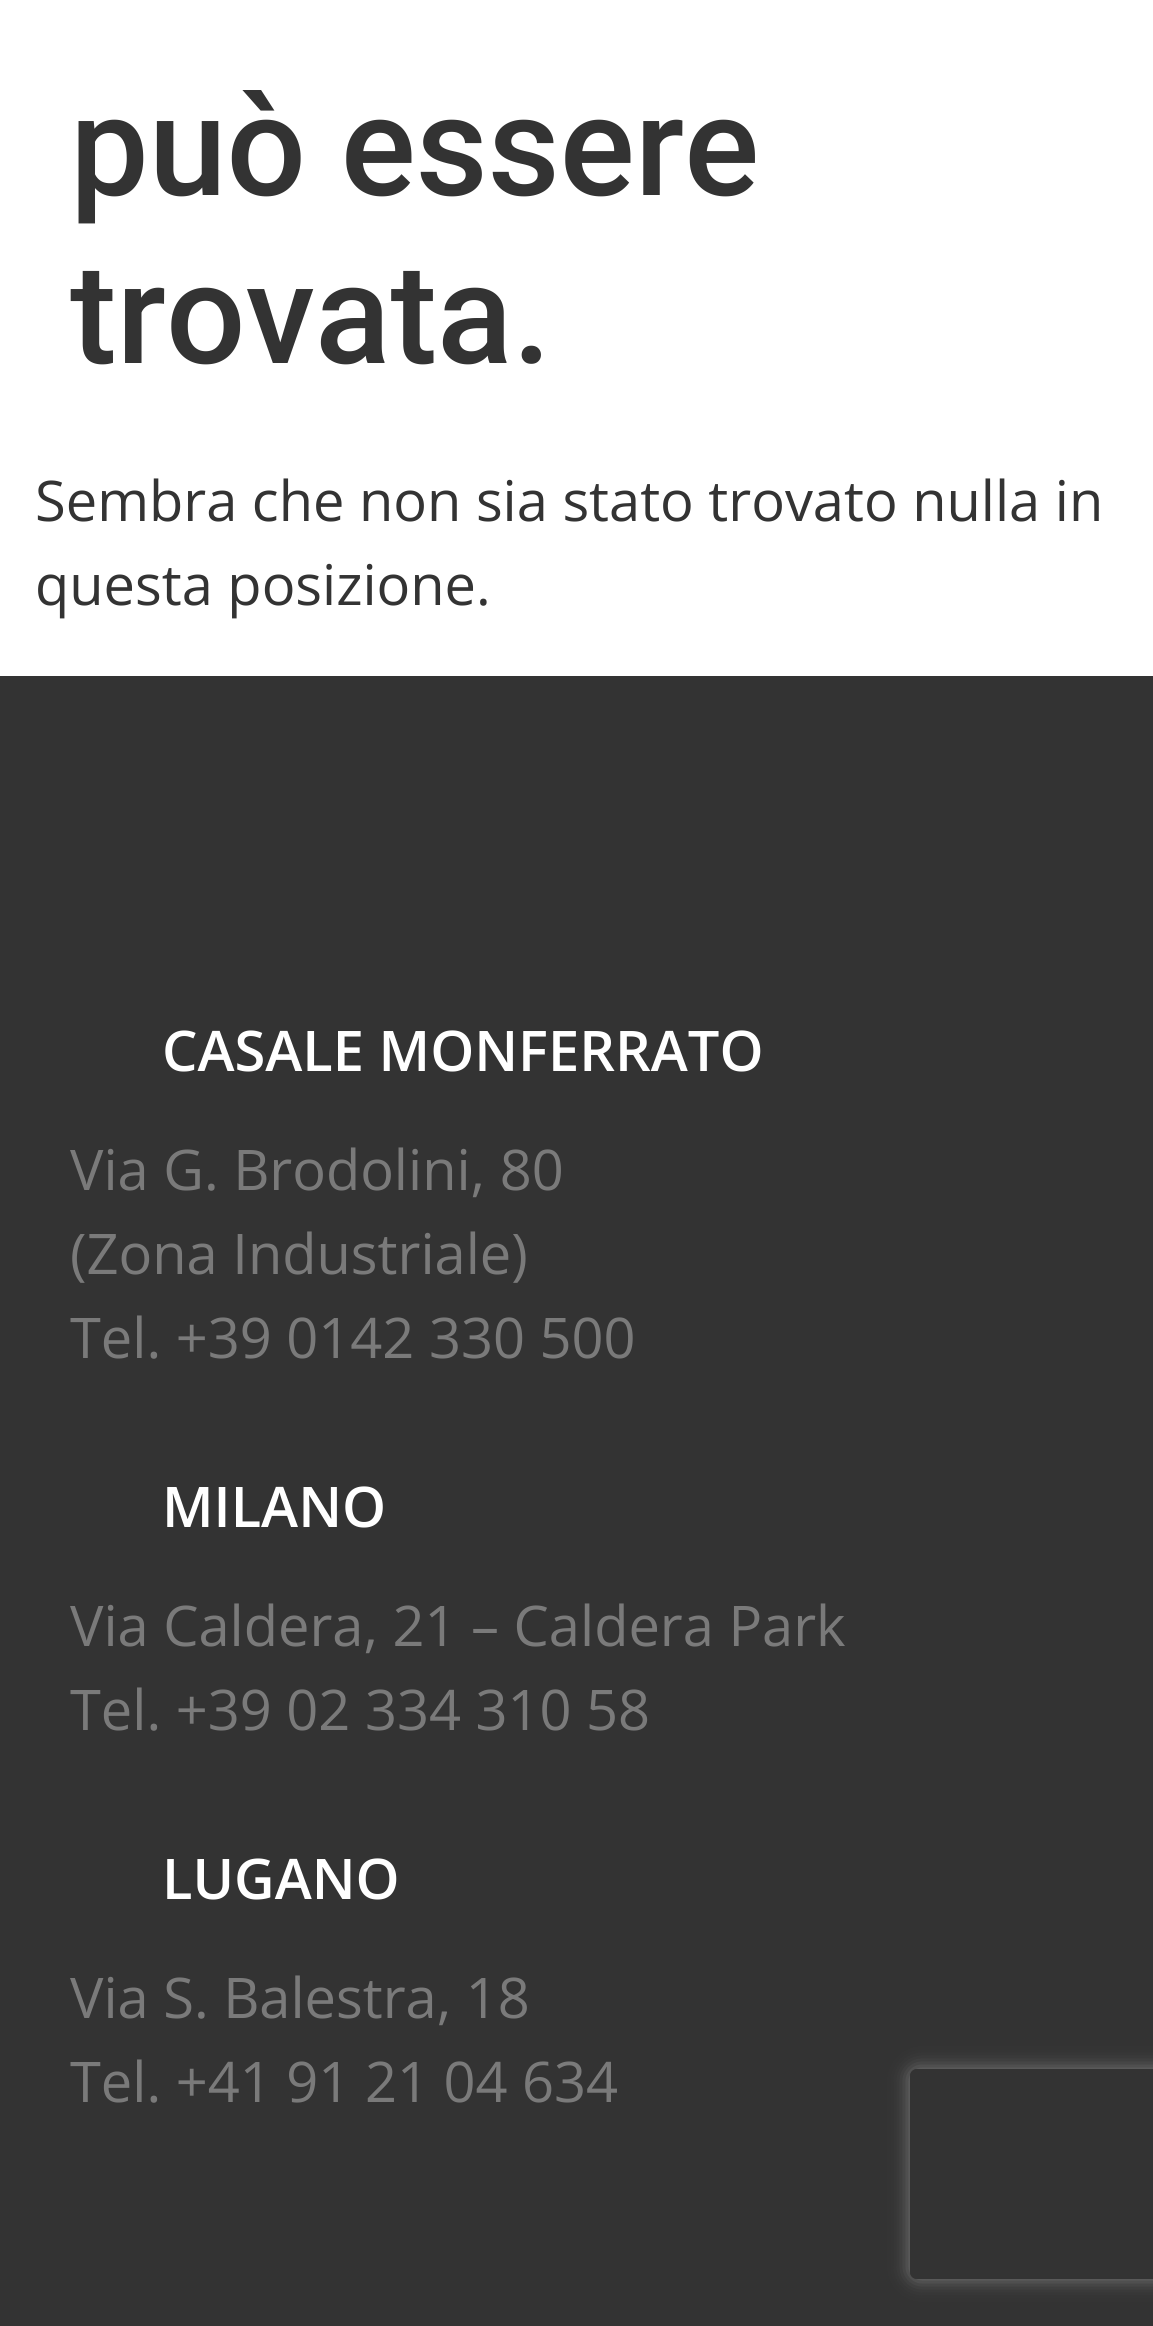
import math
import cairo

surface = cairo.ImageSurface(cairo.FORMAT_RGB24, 1153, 2326)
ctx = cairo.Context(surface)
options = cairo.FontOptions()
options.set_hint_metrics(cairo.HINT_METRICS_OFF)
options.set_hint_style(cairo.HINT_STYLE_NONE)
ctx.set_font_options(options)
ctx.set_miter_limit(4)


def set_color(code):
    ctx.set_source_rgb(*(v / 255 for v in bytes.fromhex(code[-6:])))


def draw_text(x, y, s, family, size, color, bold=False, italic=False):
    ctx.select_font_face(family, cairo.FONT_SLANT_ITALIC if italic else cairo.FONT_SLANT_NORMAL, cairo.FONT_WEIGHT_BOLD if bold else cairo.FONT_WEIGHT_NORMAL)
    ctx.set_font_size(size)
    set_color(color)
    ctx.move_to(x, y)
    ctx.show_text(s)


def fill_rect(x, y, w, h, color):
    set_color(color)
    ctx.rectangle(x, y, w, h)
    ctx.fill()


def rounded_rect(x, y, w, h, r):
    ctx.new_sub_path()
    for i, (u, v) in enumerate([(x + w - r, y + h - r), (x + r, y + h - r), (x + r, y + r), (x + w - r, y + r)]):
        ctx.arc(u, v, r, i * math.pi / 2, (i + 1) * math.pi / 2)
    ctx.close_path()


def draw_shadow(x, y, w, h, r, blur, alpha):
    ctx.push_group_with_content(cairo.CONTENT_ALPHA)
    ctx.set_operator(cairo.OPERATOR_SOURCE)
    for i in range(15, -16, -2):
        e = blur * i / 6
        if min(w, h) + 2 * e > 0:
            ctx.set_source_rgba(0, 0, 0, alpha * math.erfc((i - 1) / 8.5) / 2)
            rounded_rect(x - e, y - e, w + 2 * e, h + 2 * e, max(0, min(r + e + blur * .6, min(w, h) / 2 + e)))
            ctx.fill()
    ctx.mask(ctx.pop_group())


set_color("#ffffff")
ctx.paint()
draw_text(70, 195, "può essere", "Roboto Medium", 140, "#333333")
draw_text(70, 363, "trovata.", "Roboto Medium", 140, "#333333")
draw_text(35, 521, "Sembra che non sia stato trovato nulla in", "Open Sans", 56, "#333333")
draw_text(35, 605, "questa posizione.", "Open Sans", 56, "#333333")
fill_rect(0, 676, 1153, 1650, "#333333")
draw_text(162, 1071, "CASALE MONFERRATO", "Open Sans SemiBold", 56, "#ffffff")
draw_text(70, 1190, "Via G. Brodolini, 80", "Open Sans", 56, "#7a7a7a")
draw_text(70, 1274, "(Zona Industriale)", "Open Sans", 56, "#7a7a7a")
draw_text(70, 1358, "Tel. +39 0142 330 500", "Open Sans", 56, "#7a7a7a")
draw_text(162, 1527, "MILANO", "Open Sans SemiBold", 56, "#ffffff")
draw_text(70, 1646, "Via Caldera, 21 – Caldera Park", "Open Sans", 56, "#7a7a7a")
draw_text(70, 1730, "Tel. +39 02 334 310 58", "Open Sans", 56, "#7a7a7a")
draw_text(162, 1899, "LUGANO", "Open Sans SemiBold", 56, "#ffffff")
draw_text(70, 2018, "Via S. Balestra, 18", "Open Sans", 56, "#7a7a7a")
draw_text(70, 2102, "Tel. +41 91 21 04 634", "Open Sans", 56, "#7a7a7a")
ctx.save()
ctx.set_fill_rule(cairo.FILL_RULE_EVEN_ODD)
ctx.new_path()
ctx.move_to(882, 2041)
ctx.line_to(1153, 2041)
ctx.line_to(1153, 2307)
ctx.line_to(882, 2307)
ctx.close_path()
ctx.move_to(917, 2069)
ctx.line_to(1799, 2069)
ctx.curve_to(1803, 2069, 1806, 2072, 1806, 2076)
ctx.line_to(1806, 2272)
ctx.curve_to(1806, 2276, 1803, 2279, 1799, 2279)
ctx.line_to(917, 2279)
ctx.curve_to(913, 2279, 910, 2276, 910, 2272)
ctx.line_to(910, 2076)
ctx.curve_to(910, 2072, 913, 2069, 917, 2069)
ctx.close_path()
ctx.clip()
set_color("#808080")
draw_shadow(910, 2069, 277, 210, 7, 9, 1)
ctx.restore()
surface.write_to_png("output.png")
